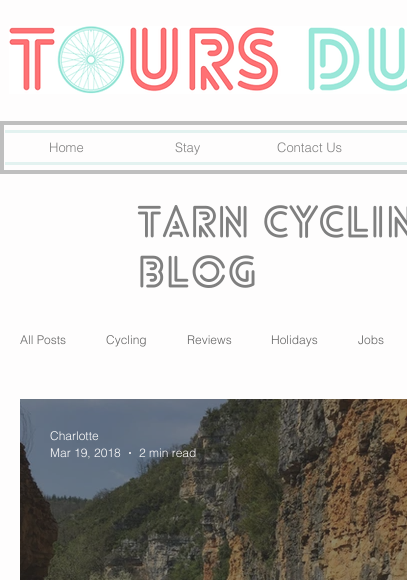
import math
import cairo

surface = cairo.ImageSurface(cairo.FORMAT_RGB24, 407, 580)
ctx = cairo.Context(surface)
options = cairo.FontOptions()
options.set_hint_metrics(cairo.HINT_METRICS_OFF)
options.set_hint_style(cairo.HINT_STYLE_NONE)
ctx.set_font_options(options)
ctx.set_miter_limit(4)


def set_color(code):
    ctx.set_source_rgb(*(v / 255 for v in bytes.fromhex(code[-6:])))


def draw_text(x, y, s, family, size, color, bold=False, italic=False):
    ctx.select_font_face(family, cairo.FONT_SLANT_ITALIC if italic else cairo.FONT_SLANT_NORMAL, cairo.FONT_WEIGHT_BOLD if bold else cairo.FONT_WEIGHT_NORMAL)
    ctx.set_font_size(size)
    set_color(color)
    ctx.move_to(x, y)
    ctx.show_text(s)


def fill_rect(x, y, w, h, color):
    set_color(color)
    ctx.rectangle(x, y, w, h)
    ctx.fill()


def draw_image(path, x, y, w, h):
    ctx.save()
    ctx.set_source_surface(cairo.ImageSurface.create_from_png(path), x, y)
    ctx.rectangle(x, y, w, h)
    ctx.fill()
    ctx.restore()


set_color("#fefdfd")
ctx.paint()
draw_image("assets/img1.png", 9, 26, 398, 68)
ctx.rectangle(2, 123, 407, 49)
set_color("#bfbfbf")
ctx.set_line_width(4)
ctx.stroke()
fill_rect(5, 130, 402, 3, "#e3f2f0")
fill_rect(5, 162, 402, 3, "#e3f2f0")
draw_text(49, 152, "Home", "helvetica Light", 13, "#7f7f7f")
draw_text(175, 152, "Stay", "helvetica Light", 13, "#7f7f7f")
draw_text(277, 152, "Contact Us", "helvetica Light", 13, "#7f7f7f")
draw_text(137, 237, "Tarn Cyclin", "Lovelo", 43, "#7f7f7f", bold=True)
draw_text(137, 287, "Blog", "Lovelo", 43, "#7f7f7f", bold=True)
draw_text(20, 344, "All Posts", "helvetica Light", 12, "#626262")
draw_text(106, 344, "Cycling", "helvetica Light", 12, "#626262")
draw_text(187, 344, "Reviews", "helvetica Light", 12, "#626262")
draw_text(271, 344, "Holidays", "helvetica Light", 12, "#626262")
draw_text(358, 344, "Jobs", "helvetica Light", 12, "#626262")
draw_image("assets/img2.png", 20, 399, 387, 181)
draw_text(50, 440, "Charlotte", "helvetica Light", 12, "#fefdfd")
draw_text(50, 457, "Mar 19, 2018", "helvetica Light", 12, "#fefdfd")
ctx.new_path()
ctx.arc(130, 453, 1, 0, 2 * math.pi)
ctx.fill()
draw_text(139, 457, "2 min read", "helvetica Light", 12, "#fefdfd")
surface.write_to_png("output.png")
